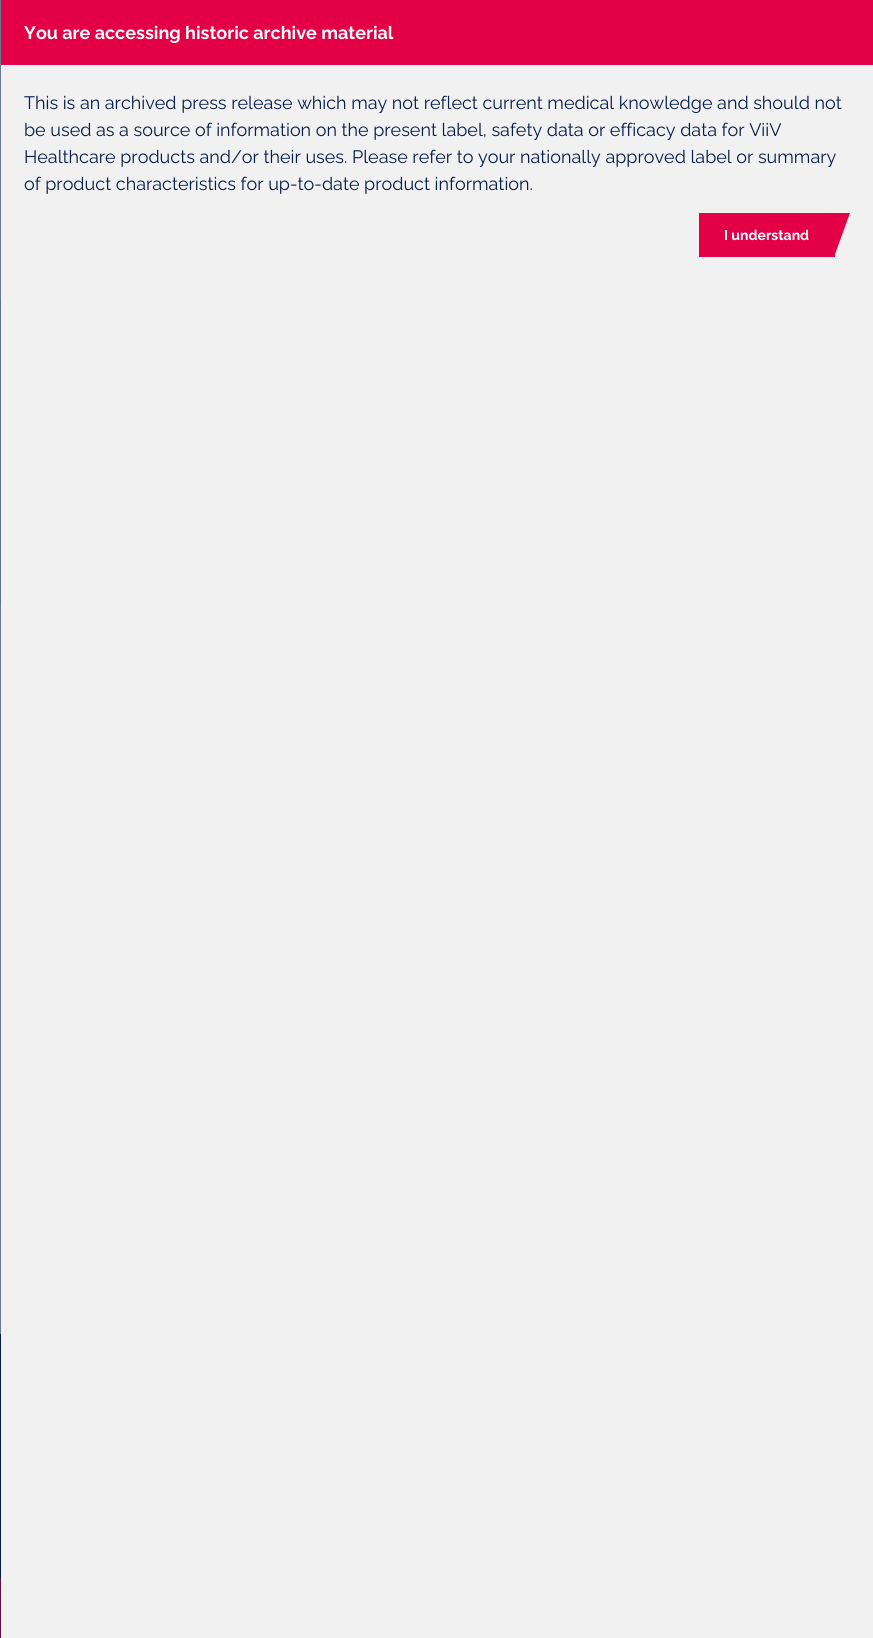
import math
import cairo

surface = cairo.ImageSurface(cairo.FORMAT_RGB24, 873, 1638)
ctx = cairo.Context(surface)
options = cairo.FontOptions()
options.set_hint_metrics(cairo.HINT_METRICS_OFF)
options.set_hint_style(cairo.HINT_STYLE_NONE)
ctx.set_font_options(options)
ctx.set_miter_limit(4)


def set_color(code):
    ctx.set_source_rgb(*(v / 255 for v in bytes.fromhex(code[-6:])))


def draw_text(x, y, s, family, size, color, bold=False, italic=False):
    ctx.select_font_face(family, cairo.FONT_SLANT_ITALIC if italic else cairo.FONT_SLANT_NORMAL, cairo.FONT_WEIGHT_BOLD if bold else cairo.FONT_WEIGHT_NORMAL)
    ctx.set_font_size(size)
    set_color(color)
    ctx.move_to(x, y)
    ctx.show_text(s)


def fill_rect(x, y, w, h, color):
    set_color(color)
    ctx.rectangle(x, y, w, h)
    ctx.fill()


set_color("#6a7792")
ctx.paint()
fill_rect(0, 602, 1, 1, "#576681")
fill_rect(0, 1334, 1, 245, "#071d49")
set_color("#5f1148")
ctx.new_path()
ctx.move_to(0, 1578)
ctx.line_to(60, 1638)
ctx.line_to(0, 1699)
ctx.line_to(-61, 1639)
ctx.close_path()
ctx.fill()
fill_rect(1, 65, 872, 1573, "#f1f1f1")
fill_rect(1, 0, 872, 65, "#e40046")
draw_text(24, 39, "You are accessing historic archive material", "Raleway", 18, "#ffffff", bold=True)
draw_text(24, 109, "This is an archived press release which may not reflect current medical knowledge and should not", "Raleway", 18, "#071d49")
draw_text(24, 136, "be used as a source of information on the present label, safety data or efficacy data for ViiV", "Raleway", 18, "#071d49")
draw_text(24, 163, "Healthcare products and/or their uses. Please refer to your nationally approved label or summary", "Raleway", 18, "#071d49")
draw_text(24, 190, "of product characteristics for up-to-date product information.", "Raleway", 18, "#071d49")
fill_rect(699, 213, 136, 44, "#e40046")
draw_text(724, 240, "I understand", "Raleway", 14, "#ffffff", bold=True)
set_color("#e40046")
ctx.new_path()
ctx.move_to(834, 213)
ctx.line_to(850, 213)
ctx.line_to(834, 257)
ctx.close_path()
ctx.fill()
fill_rect(0, 300, 1, 302, "#65728c")
surface.write_to_png("output.png")
